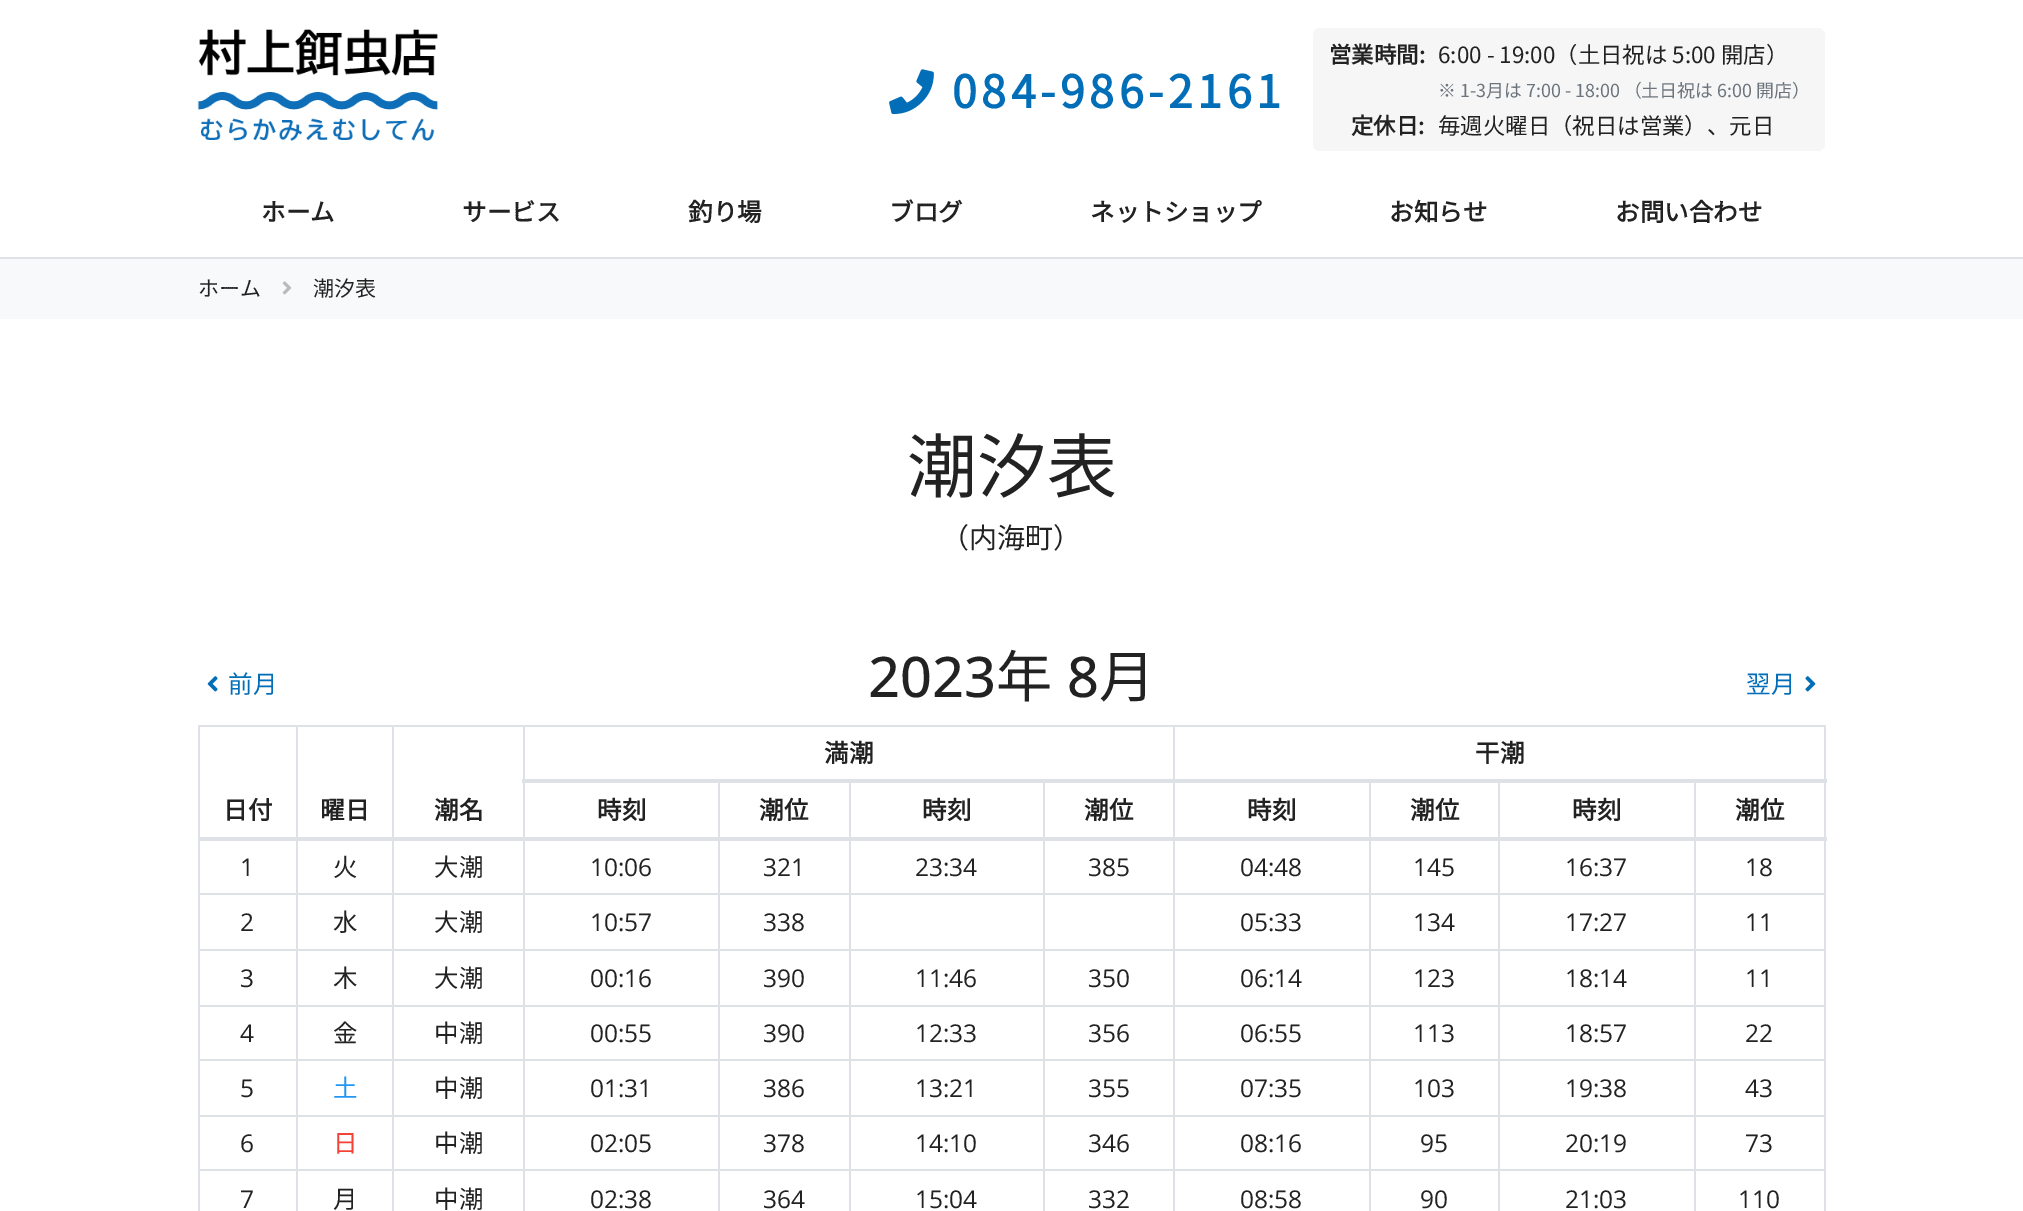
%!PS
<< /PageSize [2023 1211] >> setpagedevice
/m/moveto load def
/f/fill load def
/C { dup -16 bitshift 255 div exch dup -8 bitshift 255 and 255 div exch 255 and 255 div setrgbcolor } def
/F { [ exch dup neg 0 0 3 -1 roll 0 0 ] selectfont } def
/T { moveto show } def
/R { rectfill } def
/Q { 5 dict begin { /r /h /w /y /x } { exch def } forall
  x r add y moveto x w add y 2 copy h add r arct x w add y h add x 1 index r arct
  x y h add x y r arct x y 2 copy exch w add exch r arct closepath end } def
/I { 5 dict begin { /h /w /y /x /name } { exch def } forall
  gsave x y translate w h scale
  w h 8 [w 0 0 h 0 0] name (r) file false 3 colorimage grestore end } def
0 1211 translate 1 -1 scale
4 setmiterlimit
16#FFFFFF C
0 0 2023 1211 R
16#DEE2E6 C
0 257 2023 2 R
(1.rgb) 197 29 241 112 I
(2.rgb) 889 69 45 46 I
/NotoSansJP-Bold 44.75 F
16#036EB8 C
952 108 m 4.5 0 (084-986-2161) ashow
16#F6F6F6 C
1313 28 512 123 7 Q f
/NotoSansJP-Bold 22.4 F
16#222222 C
(営業時間:) 1329 63 T
/NotoSansJP-Thin 22.4 F
(6:00 - 19:00（土日祝は 5:00 開店）) 1438 63 T
/NotoSansJP-Thin 17.9 F
16#6C757D C
(※ 1-3月は 7:00 - 18:00 （土日祝は 6:00 開店）) 1438 97 T
/NotoSansJP-Bold 22.4 F
16#222222 C
(定休日:) 1351 134 T
/NotoSansJP-Thin 22.4 F
(毎週火曜日（祝日は営業）、元日) 1438 134 T
/NotoSansJP-Bold 24.5 F
(ホーム) 261 221 T
(サービス) 462 221 T
(釣り場) 688 221 T
(ブログ) 889 221 T
(ネットショップ) 1090 221 T
(お知らせ) 1389 221 T
(お問い合わせ) 1615 221 T
16#F8F9FA C
0 259 2023 60 R
/NotoSansJP-Thin 21 F
16#222222 C
(ホーム) 198 296 T
(3.rgb) 282 281 10 14 I
(潮汐表) 313 296 T
/NotoSansJP-Thin 70 F
(潮汐表) 907 492 T
/NotoSansJP-Thin 28 F
(（内海町）) 941 548 T
(4.rgb) 207 676 11 16 I
/NotoSansJP-Thin 24.5 F
16#036EB8 C
(前月) 228 693 T
/OpenSans-Medium 56 F
16#222222 C
(2023) 868 697 T
/NotoSansJP-Thin 56 F
(年) 996 697 T
/OpenSans-Medium 56 F
(8) 1067 697 T
/NotoSansJP-Thin 56 F
(月) 1099 697 T
/NotoSansJP-Thin 24.5 F
16#036EB8 C
(翌月) 1746 693 T
(5.rgb) 1805 676 11 16 I
16#DEE2E6 C
198 725 1627 2 R
1824 725 2 486 R
198 725 2 486 R
/NotoSansJP-Bold 24.5 F
16#222222 C
(満潮) 824 762 T
16#DEE2E6 C
1694 893 131 2 R
1694 949 131 2 R
1694 1005 131 2 R
1694 1059 131 2 R
1694 1115 131 2 R
1694 1169 131 2 R
1694 1169 2 42 R
1498 1169 198 2 R
1694 1115 2 56 R
1498 1115 198 2 R
1694 1059 2 58 R
1498 1059 198 2 R
1694 1005 2 56 R
1498 1005 198 2 R
1694 949 2 57 R
1498 949 198 2 R
1694 893 2 57 R
1498 893 198 2 R
1498 1169 2 42 R
1369 1169 131 2 R
1498 1115 2 56 R
1369 1115 131 2 R
1498 1059 2 58 R
1369 1059 131 2 R
1498 1005 2 56 R
1369 1005 131 2 R
1498 949 2 57 R
1369 949 131 2 R
1498 893 2 57 R
1369 893 131 2 R
1369 1169 2 42 R
1173 1169 197 2 R
1369 1115 2 56 R
1173 1115 197 2 R
1369 1059 2 58 R
1173 1059 197 2 R
1369 1005 2 56 R
1173 1005 197 2 R
1369 949 2 57 R
1173 949 197 2 R
1369 893 2 57 R
1173 893 197 2 R
1173 1169 2 42 R
1043 1169 131 2 R
1173 1115 2 56 R
1043 1115 131 2 R
1173 1059 2 58 R
1043 1059 131 2 R
1173 1005 2 56 R
1043 1005 131 2 R
1173 949 2 57 R
1043 949 131 2 R
1173 893 2 57 R
1043 893 131 2 R
1043 1169 2 42 R
849 1169 196 2 R
1043 1115 2 56 R
849 1115 196 2 R
1043 1059 2 58 R
849 1059 196 2 R
1043 1005 2 56 R
849 1005 196 2 R
1043 949 2 57 R
849 949 196 2 R
1043 893 2 57 R
849 893 196 2 R
849 1169 2 42 R
718 1169 133 2 R
849 1115 2 56 R
718 1115 133 2 R
849 1059 2 58 R
718 1059 133 2 R
849 1005 2 56 R
718 1005 133 2 R
849 949 2 57 R
718 949 133 2 R
849 893 2 57 R
718 893 133 2 R
718 1169 2 42 R
523 1169 196 2 R
718 1115 2 56 R
523 1115 196 2 R
718 1059 2 58 R
523 1059 196 2 R
718 1005 2 56 R
523 1005 196 2 R
718 949 2 57 R
523 949 196 2 R
718 893 2 57 R
523 893 196 2 R
523 1169 2 42 R
392 1169 133 2 R
523 1115 2 56 R
392 1115 133 2 R
523 1059 2 58 R
392 1059 133 2 R
523 1005 2 56 R
392 1005 133 2 R
523 949 2 57 R
392 949 133 2 R
523 893 2 57 R
392 893 133 2 R
523 725 2 169 R
718 781 2 113 R
849 781 2 113 R
1043 781 2 113 R
1173 725 2 169 R
1369 781 2 113 R
1498 781 2 113 R
1694 781 2 113 R
522 779 1305 4 R
16#222222 C
(干潮) 1475 762 T
(日付) 223 819 T
(曜日) 320 819 T
(潮名) 434 819 T
(時刻) 597 819 T
(潮位) 759 819 T
(時刻) 922 819 T
(潮位) 1084 819 T
(時刻) 1247 819 T
(潮位) 1410 819 T
(時刻) 1572 819 T
16#DEE2E6 C
392 1169 2 42 R
296 1169 98 2 R
392 1115 2 56 R
296 1115 98 2 R
392 1059 2 58 R
296 1059 98 2 R
392 1005 2 56 R
296 1005 98 2 R
392 949 2 57 R
296 949 98 2 R
392 893 2 57 R
296 893 98 2 R
296 1169 2 42 R
198 1169 100 2 R
296 1115 2 56 R
198 1115 100 2 R
296 1059 2 58 R
198 1059 100 2 R
296 1005 2 56 R
198 1005 100 2 R
296 949 2 57 R
198 949 100 2 R
296 893 2 57 R
198 893 100 2 R
296 725 2 169 R
392 725 2 169 R
198 837 1629 4 R
16#222222 C
(潮位) 1735 819 T
/OpenSans-Regular 24.5 F
(1) 240 876 T
/NotoSansJP-Thin 24.5 F
(火) 333 876 T
(大潮) 434 876 T
/OpenSans-Regular 24.5 F
(10:06) 590 876 T
(321) 763 876 T
(23:34) 915 876 T
(385) 1088 876 T
(04:48) 1240 876 T
(145) 1413 876 T
(16:37) 1565 876 T
(18) 1745 876 T
(2) 240 931 T
/NotoSansJP-Thin 24.5 F
(水) 333 931 T
(大潮) 434 931 T
/OpenSans-Regular 24.5 F
(10:57) 590 931 T
(338) 763 931 T
(05:33) 1240 931 T
(134) 1413 931 T
(17:27) 1565 931 T
(11) 1745 931 T
(3) 240 987 T
/NotoSansJP-Thin 24.5 F
(木) 333 987 T
(大潮) 434 987 T
/OpenSans-Regular 24.5 F
(00:16) 590 987 T
(390) 763 987 T
(11:46) 915 987 T
(350) 1088 987 T
(06:14) 1240 987 T
(123) 1413 987 T
(18:14) 1565 987 T
(11) 1745 987 T
(4) 240 1042 T
/NotoSansJP-Thin 24.5 F
(金) 333 1042 T
(中潮) 434 1042 T
/OpenSans-Regular 24.5 F
(00:55) 590 1042 T
(390) 763 1042 T
(12:33) 915 1042 T
(356) 1088 1042 T
(06:55) 1240 1042 T
(113) 1413 1042 T
(18:57) 1565 1042 T
(22) 1745 1042 T
(5) 240 1097 T
/NotoSansJP-Thin 24.5 F
16#2196F3 C
(土) 333 1097 T
16#222222 C
(中潮) 434 1097 T
/OpenSans-Regular 24.5 F
(01:31) 590 1097 T
(386) 763 1097 T
(13:21) 915 1097 T
(355) 1088 1097 T
(07:35) 1240 1097 T
(103) 1413 1097 T
(19:38) 1565 1097 T
(43) 1745 1097 T
(6) 240 1152 T
/NotoSansJP-Thin 24.5 F
16#F44336 C
(日) 333 1152 T
16#222222 C
(中潮) 434 1152 T
/OpenSans-Regular 24.5 F
(02:05) 590 1152 T
(378) 763 1152 T
(14:10) 915 1152 T
(346) 1088 1152 T
(08:16) 1240 1152 T
(95) 1420 1152 T
(20:19) 1565 1152 T
(73) 1745 1152 T
(7) 240 1208 T
/NotoSansJP-Thin 24.5 F
(月) 333 1208 T
(中潮) 434 1208 T
/OpenSans-Regular 24.5 F
(02:38) 590 1208 T
(364) 763 1208 T
(15:04) 915 1208 T
(332) 1088 1208 T
(08:58) 1240 1208 T
(90) 1420 1208 T
(21:03) 1565 1208 T
(110) 1738 1208 T
showpage
